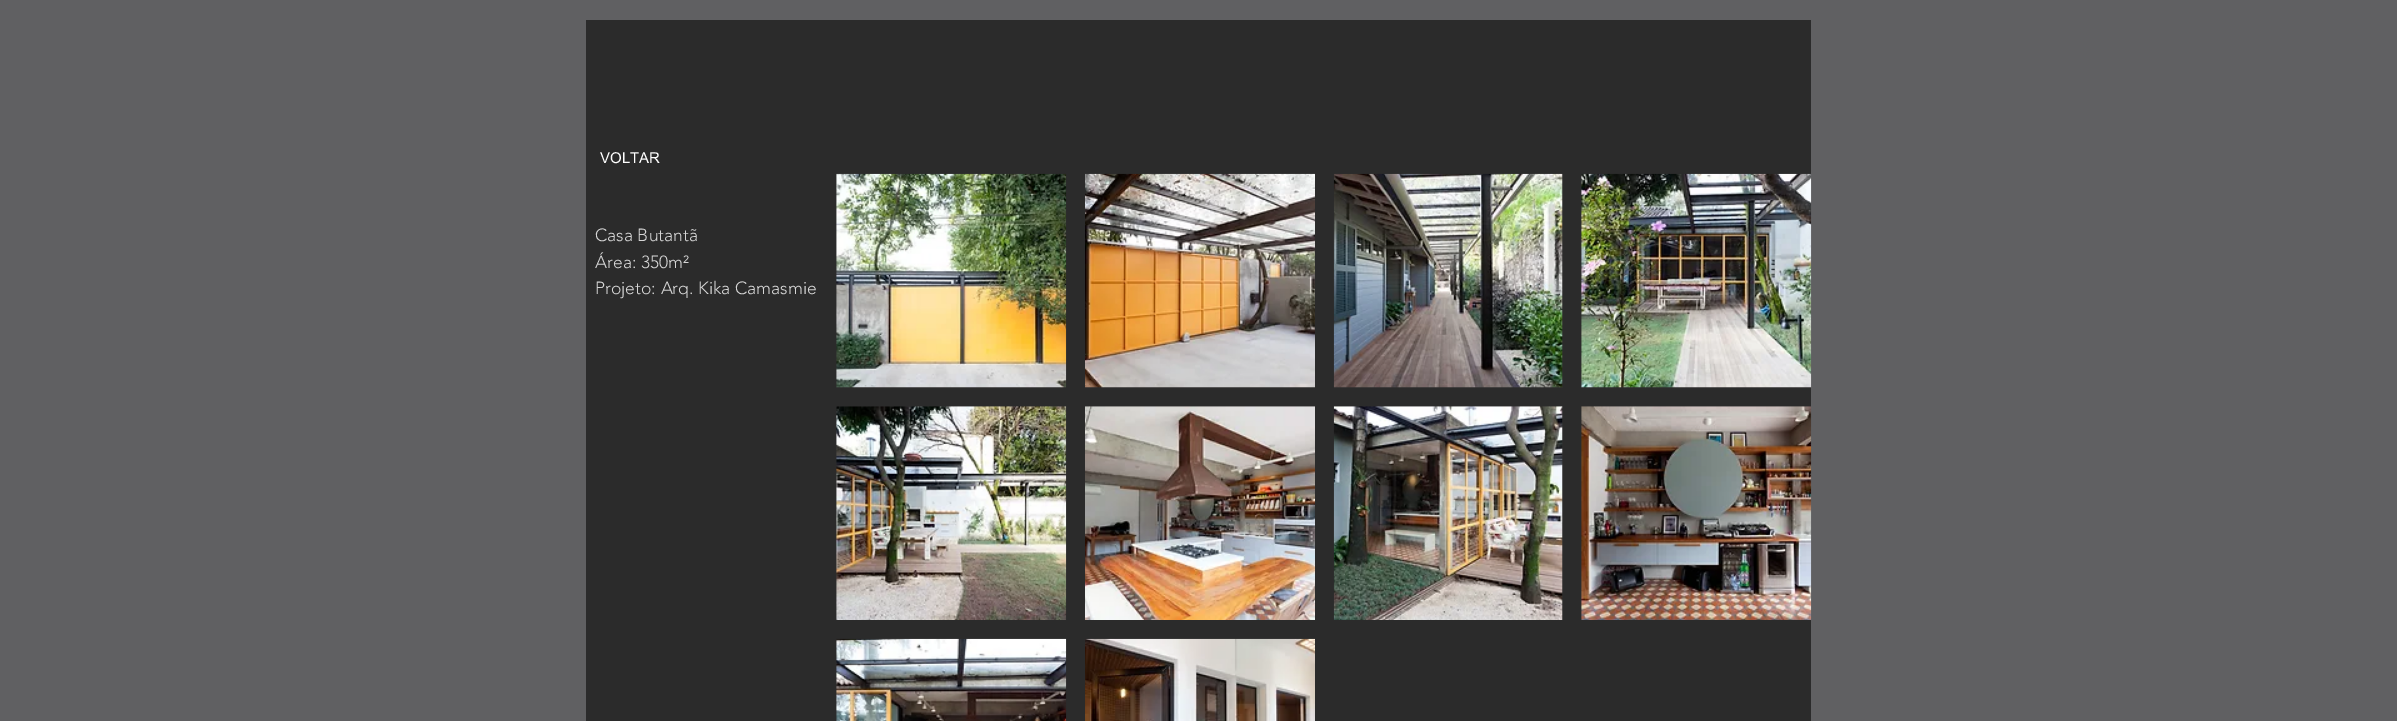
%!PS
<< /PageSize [2397 721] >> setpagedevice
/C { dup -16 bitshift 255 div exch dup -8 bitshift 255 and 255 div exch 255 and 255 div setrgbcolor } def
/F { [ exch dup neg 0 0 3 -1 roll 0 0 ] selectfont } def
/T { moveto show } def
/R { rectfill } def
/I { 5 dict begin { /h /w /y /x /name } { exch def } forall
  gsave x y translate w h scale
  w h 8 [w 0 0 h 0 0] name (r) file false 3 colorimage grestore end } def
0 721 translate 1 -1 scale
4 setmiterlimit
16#606062 C
0 0 2397 721 R
16#2B2B2B C
586 20 1225 701 R
/Arial-Regular 15 F
16#FFFFFF C
(VOLTAR) 600 163 T
/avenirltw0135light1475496-Light 17.5 F
16#D5D5D5 C
(Casa Butantã) 595 241 T
(Área: 350m²) 595 268 T
(Projeto: Arq. Kika Camasmie) 595 294 T
16#2F2E2E C
836 174 230 214 R
(1.rgb) 836 173 231 215 I
1085 387 230 1 R
(2.rgb) 1085 173 230 215 I
1334 174 229 214 R
(3.rgb) 1333 173 230 215 I
1581 174 230 214 R
(4.rgb) 1581 173 231 215 I
836 406 230 214 R
(5.rgb) 836 406 231 214 I
1085 406 230 1 R
(6.rgb) 1085 406 230 214 I
1334 406 229 214 R
(7.rgb) 1333 406 230 214 I
1581 406 230 214 R
(8.rgb) 1581 406 231 214 I
836 639 1 82 R
(9.rgb) 836 638 231 83 I
(10.rgb) 1085 638 230 83 I
showpage
